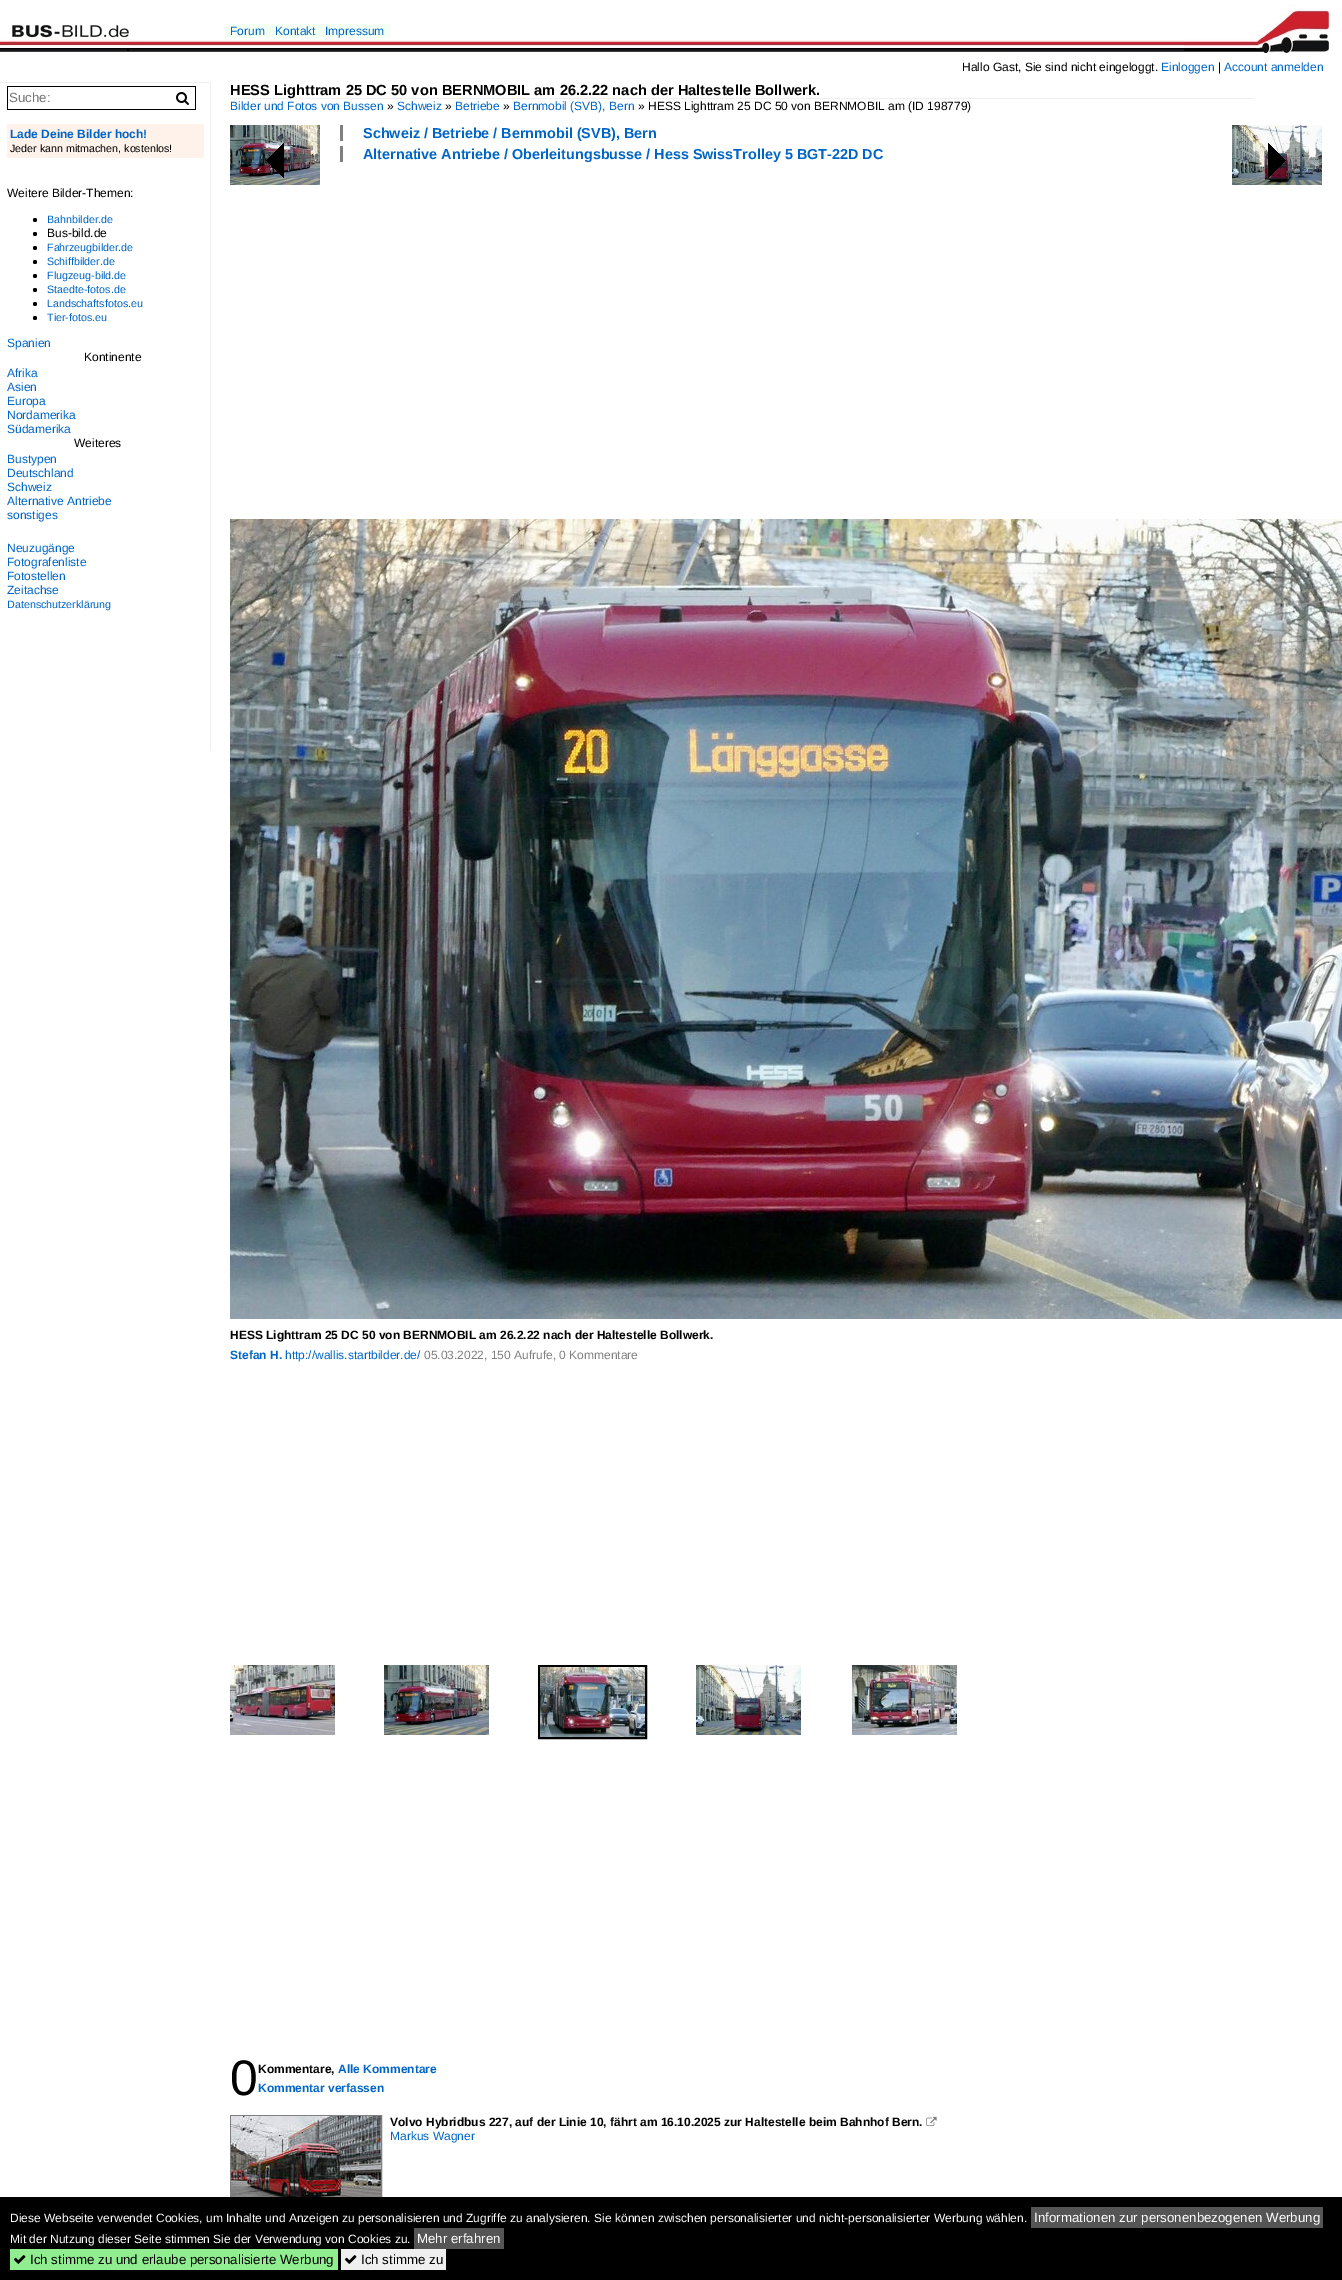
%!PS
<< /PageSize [1342 2280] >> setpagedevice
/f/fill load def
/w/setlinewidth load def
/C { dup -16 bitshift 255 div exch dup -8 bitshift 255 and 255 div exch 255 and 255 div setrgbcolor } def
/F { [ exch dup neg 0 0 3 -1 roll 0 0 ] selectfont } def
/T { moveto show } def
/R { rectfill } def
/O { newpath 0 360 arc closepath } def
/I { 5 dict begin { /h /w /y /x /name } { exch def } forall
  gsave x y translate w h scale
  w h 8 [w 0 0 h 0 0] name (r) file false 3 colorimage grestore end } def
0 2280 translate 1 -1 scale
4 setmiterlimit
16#FFFFFF C
0 0 1342 2280 R
(3.rgb) 0 40 1184 12 I
(1.rgb) 3 23 126 28 I
16#F4FFF4 C
225 24 165 14 R
/LiberationSans-Regular 12 F
16#0065C4 C
(Forum) 230 35 T
(Kontakt) 275 35 T
(Impressum) 325 35 T
(2.rgb) 1184 4 147 49 I
16#000000 C
(Hallo Gast, Sie sind nicht eingeloggt.) 962 71 T
16#0065C4 C
(Einloggen) 1161 71 T
16#000000 C
(|) 1218 71 T
16#0065C4 C
(Account anmelden) 1224 71 T
16#EFEFEF C
0 82 211 1 R
210 82 1 669 R
16#000000 C
7 86 189 1 R
7 109 163 1 R
7 86 1 24 R
/LiberationSans-Regular 13.3 F
16#757575 C
(Suche:) 9 102 T
16#000000 C
195 86 1 24 R
170 109 26 1 R
(4.rgb) 176 92 13 13 I
16#FFF2EB C
7 124 197 34 R
/LiberationSans-Bold 12 F
16#0065C4 C
(Lade Deine Bilder hoch!) 10 138 T
/LiberationSans-Regular 10.7 F
16#000000 C
(Jeder kann mitmachen, kostenlos!) 10 152 T
/LiberationSans-Regular 12 F
(Weitere Bilder-Themen:) 7 197 T
35 220 2 O f
/LiberationSans-Regular 10.7 F
16#0065C4 C
(Bahnbilder.de) 47 223 T
16#000000 C
35 234 2 O f
/LiberationSans-Regular 12 F
(Bus-bild.de) 47 237 T
35 248 2 O f
/LiberationSans-Regular 10.7 F
16#0065C4 C
(Fahrzeugbilder.de) 47 251 T
16#000000 C
35 262 2 O f
16#0065C4 C
(Schiffbilder.de) 47 265 T
16#000000 C
35 276 2 O f
16#0065C4 C
(Flugzeug-bild.de) 47 279 T
16#000000 C
35 290 2 O f
16#0065C4 C
(Staedte-fotos.de) 47 293 T
16#000000 C
35 304 2 O f
16#0065C4 C
(Landschaftsfotos.eu) 47 307 T
16#000000 C
35 318 2 O f
16#0065C4 C
(Tier-fotos.eu) 47 321 T
/LiberationSans-Regular 12 F
(Spanien) 7 347 T
16#000000 C
(Kontinente) 84 361 T
16#0065C4 C
(Afrika) 7 377 T
(Asien) 7 391 T
(Europa) 7 405 T
(Nordamerika) 7 419 T
(Südamerika) 7 433 T
16#000000 C
(Weiteres) 74 447 T
16#0065C4 C
(Bustypen) 7 463 T
(Deutschland) 7 477 T
(Schweiz) 7 491 T
(Alternative Antriebe) 7 505 T
(sonstiges) 7 519 T
(Neuzugänge) 7 552 T
(Fotografenliste) 7 566 T
(Fotostellen) 7 580 T
(Zeitachse) 7 594 T
/LiberationSans-Regular 10.7 F
(Datenschutzerklärung) 7 608 T
16#EFEFEF C
230 98 1024 1 R
/LiberationSans-Bold 14.65 F
16#000000 C
(HESS Lighttram 25 DC 50 von BERNMOBIL am 26.2.22 nach der Haltestelle Bollwerk.) 230 95 T
/LiberationSans-Regular 12 F
16#0065C4 C
(Bilder und Fotos von Bussen) 230 110 T
16#000000 C
(») 387 110 T
16#0065C4 C
(Schweiz) 397 110 T
16#000000 C
(») 445 110 T
16#0065C4 C
(Betriebe) 455 110 T
16#000000 C
(») 503 110 T
16#0065C4 C
(Bernmobil \(SVB\), Bern) 513 110 T
16#000000 C
(» HESS Lighttram 25 DC 50 von BERNMOBIL am \(ID 198779\)) 638 110 T
(5.rgb) 230 125 90 60 I
(6.rgb) 266 143 18 35 I
16#808080 C
340 125 3 16 R
/LiberationSans-Bold 14.4 F
16#0065C4 C
(Schweiz / Betriebe / Bernmobil \(SVB\), Bern) 363 138 T
16#808080 C
340 146 3 16 R
16#0065C4 C
(Alternative Antriebe / Oberleitungsbusse / Hess SwissTrolley 5 BGT-22D DC) 363 159 T
(7.rgb) 1232 125 90 60 I
(8.rgb) 1268 143 18 35 I
(9.rgb) 230 519 1112 800 I
/LiberationSans-Bold 12 F
16#000000 C
(HESS Lighttram 25 DC 50 von BERNMOBIL am 26.2.22 nach der Haltestelle Bollwerk.) 230 1339 T
16#0065C4 C
(Stefan H.) 230 1359 T
/LiberationSans-Regular 12 F
(http://wallis.startbilder.de/) 285 1359 T
16#808080 C
(05.03.2022, 150 Aufrufe, 0 Kommentare) 424 1359 T
(10.rgb) 230 1665 105 70 I
(11.rgb) 384 1665 105 70 I
16#000000 C
2 w
539 1666 107 72 rectstroke
(12.rgb) 540 1667 105 70 I
(13.rgb) 696 1665 105 70 I
(14.rgb) 852 1665 105 70 I
/LiberationSans-Regular 50 F
(0) 230 2095 T
/LiberationSans-Bold 12 F
(Kommentare,) 258 2073 T
16#0065C4 C
(Alle Kommentare) 338 2073 T
(Kommentar verfassen) 258 2092 T
16#808080 C
1 w
230.5 2115.5 151 101 rectstroke
(15.rgb) 231 2116 150 81 I
16#000000 C
(Volvo Hybridbus 227, auf der Linie 10, fährt am 16.10.2025 zur Haltestelle beim Bahnhof Bern.) 390 2126 T
(16.rgb) 926 2116 11 10 I
/LiberationSans-Regular 12 F
16#0065C4 C
(Markus Wagner) 390 2140 T
16#000000 C
0 2197 1342 83 R
16#FFFFFF C
(Diese Webseite verwendet Cookies, um Inhalte und Anzeigen zu personalisieren und Zugriffe zu analysieren. Sie können zwischen personalisierter und nicht-personalisierter Werbung wählen.) 10 2222 T
16#555555 C
1031 2207 292 21 R
/LiberationSans-Regular 13.3 F
16#FFFFFF C
(Informationen zur personenbezogenen Werbung) 1034 2222 T
/LiberationSans-Regular 12 F
(Mit der Nutzung dieser Seite stimmen Sie der Verwendung von Cookies zu.) 10 2243 T
16#555555 C
414 2228 90 21 R
/LiberationSans-Regular 13.3 F
16#FFFFFF C
(Mehr erfahren) 417 2243 T
16#90EE90 C
10 2249 328 21 R
(17.rgb) 13 2255 13 9 I
16#000000 C
(Ich stimme zu und erlaube personalisierte Werbung) 30 2264 T
16#EFEFEF C
341 2249 105 21 R
(18.rgb) 344 2255 13 9 I
16#000000 C
(Ich stimme zu) 361 2264 T
showpage
